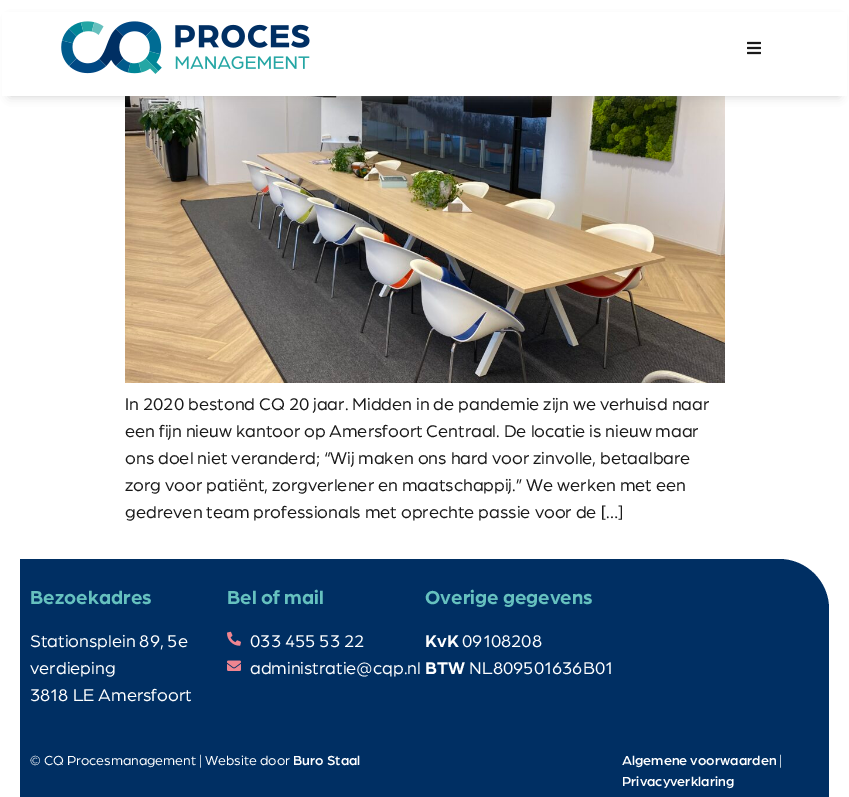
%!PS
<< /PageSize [849 797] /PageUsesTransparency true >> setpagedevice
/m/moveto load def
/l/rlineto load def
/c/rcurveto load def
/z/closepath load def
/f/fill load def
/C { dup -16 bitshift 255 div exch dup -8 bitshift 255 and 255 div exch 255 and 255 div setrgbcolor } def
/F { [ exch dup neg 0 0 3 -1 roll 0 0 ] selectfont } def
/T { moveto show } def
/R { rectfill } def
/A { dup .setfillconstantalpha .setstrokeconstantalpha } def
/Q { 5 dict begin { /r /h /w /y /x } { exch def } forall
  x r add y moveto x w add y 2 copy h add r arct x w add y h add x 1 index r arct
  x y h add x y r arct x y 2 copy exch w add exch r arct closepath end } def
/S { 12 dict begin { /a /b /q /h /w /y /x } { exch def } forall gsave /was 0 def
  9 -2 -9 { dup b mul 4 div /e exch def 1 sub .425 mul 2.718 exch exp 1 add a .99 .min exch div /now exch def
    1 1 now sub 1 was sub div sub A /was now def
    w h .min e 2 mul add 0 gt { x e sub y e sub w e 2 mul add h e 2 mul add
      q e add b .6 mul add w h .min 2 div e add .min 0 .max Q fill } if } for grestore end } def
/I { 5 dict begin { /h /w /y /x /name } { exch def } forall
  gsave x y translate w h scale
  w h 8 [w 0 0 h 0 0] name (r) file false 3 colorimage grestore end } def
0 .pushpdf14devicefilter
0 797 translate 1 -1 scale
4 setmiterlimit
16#FFFFFF C
0 0 849 797 R
(3.rgb) 125 96 600 287 I
16#9F9F9F C
10 20 829 76 0 5 .5 S
16#FFFFFF C
2 12 845 84 R
(1.rgb) 61 21 249 53 I
(2.rgb) 747 41 14 14 I
/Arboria-Regular 18 F
16#1A1A1A C
(In 2020 bestond CQ 20 jaar. Midden in de pandemie zijn we verhuisd naar) 125 410 T
(een fijn nieuw kantoor op Amersfoort Centraal. De locatie is nieuw maar) 125 437 T
(ons doel niet veranderd; “Wij maken ons hard voor zinvolle, betaalbare) 125 464 T
(zorg voor patiënt, zorgverlener en maatschappij.” We werken met een) 125 491 T
(gedreven team professionals met oprechte passie voor de […]) 125 518 T
16#002F63 C
20 559 m 759 0 l 27.5 0 50 22.5 50 50 c 0 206 l -809 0 l z f
/Arboria-Bold 20 F
16#66C1BF C
(Bezoekadres) 30 604 T
/Arboria-Regular 18 F
16#FFFFFF C
(Stationsplein 89, 5e) 30 647 T
(verdieping) 30 674 T
(3818 LE Amersfoort) 30 701 T
/Arboria-Bold 20 F
16#66C1BF C
(Bel of mail) 227 604 T
(4.rgb) 227 631 14 15 I
/Arboria-Regular 18 F
16#FFFFFF C
(033 455 53 22) 250 647 T
(5.rgb) 227 660 14 11 I
(administratie@cqp.nl) 250 674 T
/Arboria-Bold 20 F
16#66C1BF C
(Overige gegevens) 425 604 T
/Arboria-Bold 18 F
16#FFFFFF C
(KvK) 425 647 T
/Arboria-Regular 18 F
(09108208) 462 647 T
/Arboria-Bold 18 F
(BTW) 425 674 T
/Arboria-Regular 18 F
(NL809501636B01) 469 674 T
/Arboria-Regular 14 F
(© CQ Procesmanagement | Website door) 30 765 T
/Arboria-Medium 14 F
(Buro Staal) 293 765 T
(Algemene voorwaarden) 622 765 T
/Arboria-Regular 14 F
(|) 779 765 T
/Arboria-Medium 14 F
(Privacyverklaring) 622 786 T
.poppdf14devicefilter showpage
